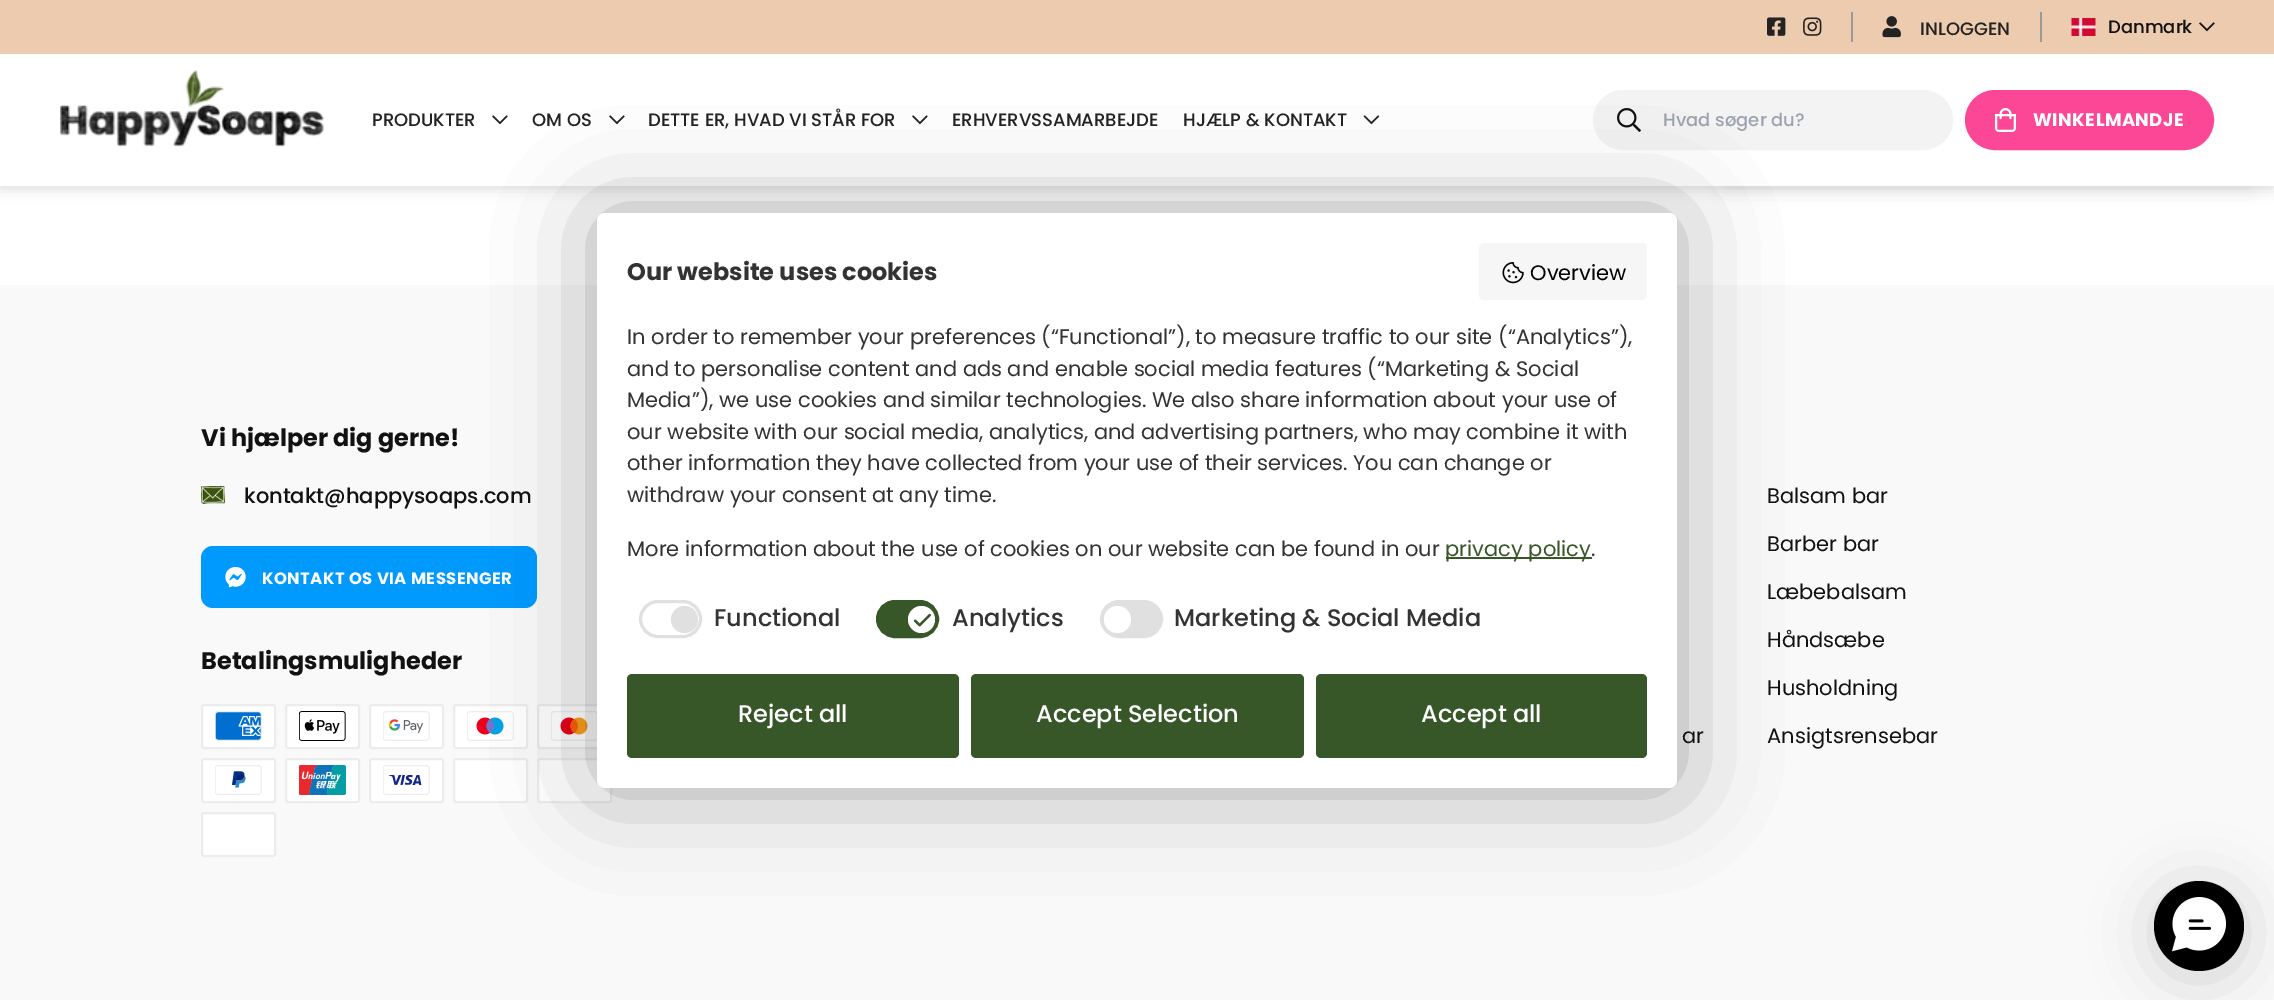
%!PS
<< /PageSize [2274 1000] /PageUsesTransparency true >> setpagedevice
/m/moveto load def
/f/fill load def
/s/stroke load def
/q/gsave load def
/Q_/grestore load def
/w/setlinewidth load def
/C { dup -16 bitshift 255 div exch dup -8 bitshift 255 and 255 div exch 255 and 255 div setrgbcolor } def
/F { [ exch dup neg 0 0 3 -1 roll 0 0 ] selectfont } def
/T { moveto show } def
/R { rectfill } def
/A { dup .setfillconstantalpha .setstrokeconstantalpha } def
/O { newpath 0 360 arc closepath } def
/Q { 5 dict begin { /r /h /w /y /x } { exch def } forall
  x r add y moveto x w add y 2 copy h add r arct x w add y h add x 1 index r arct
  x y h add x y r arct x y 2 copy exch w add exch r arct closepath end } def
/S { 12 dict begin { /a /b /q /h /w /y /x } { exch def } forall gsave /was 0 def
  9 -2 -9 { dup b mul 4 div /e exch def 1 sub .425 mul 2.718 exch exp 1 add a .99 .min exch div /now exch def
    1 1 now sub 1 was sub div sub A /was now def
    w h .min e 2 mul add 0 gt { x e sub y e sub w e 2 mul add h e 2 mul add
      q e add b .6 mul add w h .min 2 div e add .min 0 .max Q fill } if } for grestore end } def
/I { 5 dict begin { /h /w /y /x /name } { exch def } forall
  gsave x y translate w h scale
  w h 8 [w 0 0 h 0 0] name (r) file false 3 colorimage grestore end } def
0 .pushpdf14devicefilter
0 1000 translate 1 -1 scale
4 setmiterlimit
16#FFFFFF C
0 0 2274 1000 R
16#000000 C
1725 -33 525 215 0 11 .15 S
0 56 2274 132 0 7 .15 S
16#EDCBAF C
0 0 2274 54 R
16#999999 C
1851 12 2 30 R
(1.rgb) 1767 17 19 19 I
(2.rgb) 1803 17 19 19 I
2040 12 2 30 R
(3.rgb) 1882 16 19 22 I
/Poppins-Medium 18 F
16#232323 C
(INLOGGEN) 1920 35 T
(4.rgb) 2071 18 25 18 I
16#121212 C
(Danmark) 2108 33 T
(5.rgb) 2199 22 16 10 I
16#FFFFFF C
0 54 2274 132 R
(6.rgb) 60 70 264 77 I
16#232323 C
(PRODUKTER) 372 126 T
(7.rgb) 492 115 16 10 I
(OM OS) 532 126 T
(7.rgb) 609 115 16 10 I
(DETTE ER, HVAD VI STÅR FOR) 648 126 T
(7.rgb) 912 115 16 10 I
(ERHVERVSSAMARBEJDE) 952 126 T
(HJÆLP & KONTAKT) 1183 126 T
(8.rgb) 1363 115 17 10 I
16#F3F3F3 C
1594.5 91.5 357 57 28.5 Q q f Q_
3 w
s
(9.rgb) 1617 108 24 24 I
16#9CA3AF C
(Hvad søger du?) 1663 126 T
16#FC4797 C
1966.5 91.5 246 57 28.5 Q q f Q_
s
(10.rgb) 1995 108 21 24 I
/Poppins-Bold 18 F
16#FFFFFF C
2033 126 m .5 0 (WINKELMANDJE) ashow
16#F9F9F9 C
0 285 2274 715 R
16#009AFF C
201 546 336 62 12 Q f
16#FFFFFF C
454 705 73 43 2 Q q f Q_
16#ECECEC C
2 w
s
(18.rgb) 467 711 47 30 I
16#FFFFFF C
538 705 73 43 2 Q q f Q_
16#ECECEC C
s
(19.rgb) 551 711 46 30 I
16#FFFFFF C
454 759 73 43 2 Q q f Q_
16#ECECEC C
s
16#FFFFFF C
538 759 73 43 2 Q q f Q_
16#ECECEC C
s
16#000000 C
597 213 1080 575 8 48 .33 S
16#FFFFFF C
597 213 1080 575 8 Q f
/Poppins-Bold 24 F
16#333333 C
(Our website uses cookies) 627 280 T
16#F6F6F6 C
1479 243 168 57 5 Q f
(11.rgb) 1502 262 22 22 I
/Poppins-Regular 21 F
16#000000 C
(Overview) 1530 280 T
16#333333 C
(In order to remember your preferences \(“Functional”\), to measure traffic to our site \(“Analytics”\),) 627 344 T
(and to personalise content and ads and enable social media features \(“Marketing & Social) 627 376 T
(Media”\), we use cookies and similar technologies. We also share information about your use of) 627 407 T
(our website with our social media, analytics, and advertising partners, who may combine it with) 627 439 T
(other information they have collected from your use of their services. You can change or) 627 470 T
(withdraw your consent at any time.) 627 502 T
(More information about the use of cookies on our website can be found in our) 627 556 T
16#375728 C
1446 557 146 2 R
(privacy policy) 1445 556 T
16#333333 C
(.) 1591 556 T
16#E0E0E0 C
3 w
640.5 601.5 60 35 17.5 Q s
684.5 619.5 13.5 O f
/Poppins-Medium 24 F
16#333333 C
(Functional) 714 626 T
16#375728 C
877.5 601.5 60 35 17.5 Q q f Q_
s
16#FFFFFF C
921.5 619.5 13.5 O f
(12.rgb) 913 613 18 14 I
16#333333 C
(Analytics) 952 626 T
16#E0E0E0 C
1101.5 601.5 60 35 17.5 Q q f Q_
s
16#FFFFFF C
1117.5 619.5 13.5 O f
16#333333 C
(Marketing & Social Media) 1174 626 T
16#375728 C
627 674 332 84 5 Q f
16#FFFFFF C
(Reject all) 738 722 T
16#375728 C
971 674 333 84 5 Q f
16#FFFFFF C
(Accept Selection) 1036 722 T
16#375728 C
1316 674 331 84 5 Q f
16#FFFFFF C
(Accept all) 1421 722 T
/Poppins-Bold 24 F
16#121212 C
(Vi hjælper dig gerne!) 201 446 T
(13.rgb) 201 486 24 18 I
/Poppins-Medium 21 F
(kontakt@happysoaps.com) 244 503 T
(14.rgb) 225 566 21 22 I
/Poppins-Bold 16.5 F
16#FFFFFF C
262 584 m .4 0 (KONTAKT OS VIA MESSENGER) ashow
/Poppins-Bold 24 F
16#121212 C
(Betalingsmuligheder) 201 669 T
16#FFFFFF C
202 705 73 43 2 Q q f Q_
16#ECECEC C
2 w
s
(15.rgb) 215 711 47 30 I
16#FFFFFF C
286 705 73 43 2 Q q f Q_
16#ECECEC C
s
(16.rgb) 299 711 47 30 I
16#FFFFFF C
370 705 73 43 2 Q q f Q_
16#ECECEC C
s
(17.rgb) 383 711 47 30 I
16#FFFFFF C
202 759 73 43 2 Q q f Q_
16#ECECEC C
s
(20.rgb) 215 765 47 30 I
16#FFFFFF C
286 759 73 43 2 Q q f Q_
16#ECECEC C
s
(21.rgb) 299 765 47 30 I
16#FFFFFF C
370 759 73 43 2 Q q f Q_
16#ECECEC C
s
(22.rgb) 383 765 47 30 I
16#FFFFFF C
202 813 73 43 2 Q q f Q_
16#ECECEC C
s
/Poppins-Regular 21 F
16#121212 C
(Balsam bar) 1767 503 T
(Barber bar) 1767 551 T
(Læbebalsam) 1767 599 T
(Håndsæbe) 1767 647 T
(Husholdning) 1767 695 T
(ar) 1682 743 T
(Ansigtsrensebar) 1767 743 T
16#000000 C
2154 888 90 90 45 30 .16 S
2199 926 45 O f
(23.rgb) 2172 897 54 55 I
.poppdf14devicefilter showpage
